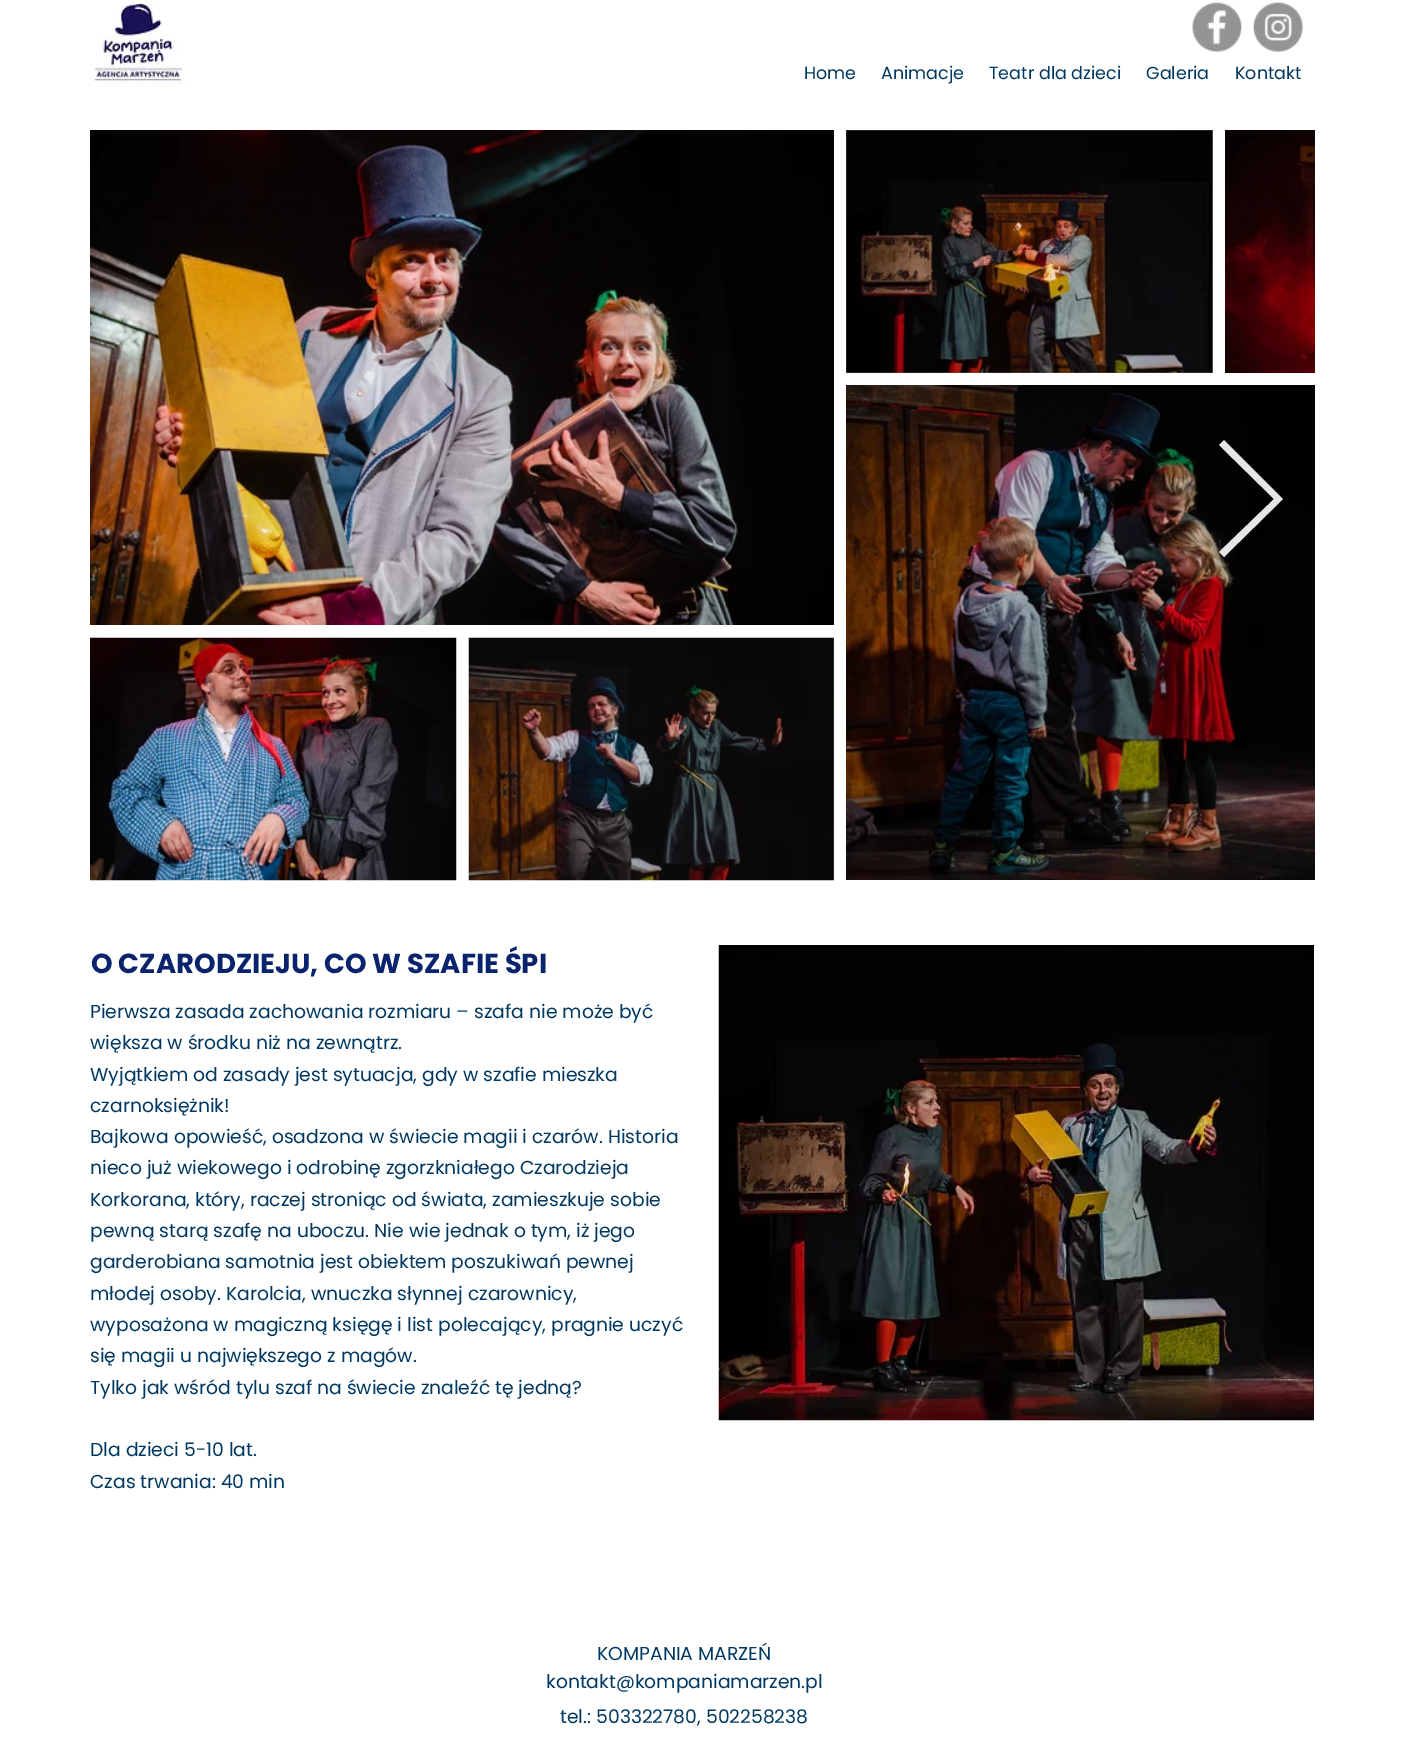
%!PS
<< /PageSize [1405 1742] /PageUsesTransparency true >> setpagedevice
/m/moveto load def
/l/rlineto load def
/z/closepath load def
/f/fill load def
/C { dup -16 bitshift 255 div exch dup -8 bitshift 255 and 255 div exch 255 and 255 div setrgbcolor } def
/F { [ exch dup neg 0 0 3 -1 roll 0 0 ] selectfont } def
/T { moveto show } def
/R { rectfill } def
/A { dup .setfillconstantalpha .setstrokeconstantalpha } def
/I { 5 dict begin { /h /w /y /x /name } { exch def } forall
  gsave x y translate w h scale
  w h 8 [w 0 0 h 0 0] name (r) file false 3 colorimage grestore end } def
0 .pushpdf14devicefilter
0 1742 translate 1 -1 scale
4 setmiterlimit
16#FFFFFF C
0 0 1405 1742 R
(1.rgb) 94 0 91 89 I
(2.rgb) 1192 2 50 50 I
(3.rgb) 1253 2 50 50 I
/Poppins-Regular 17.5 F
16#003862 C
(Home) 804 79 T
(Animacje) 881 79 T
(Teatr dla dzieci) 989 79 T
(Galeria) 1146 79 T
(Kontakt) 1235 79 T
(4.rgb) 90 130 744 495 I
(5.rgb) 90 637 367 244 I
(6.rgb) 468 637 366 244 I
16#8C8C8C C
846 130 367 243 R
(7.rgb) 846 130 367 243 I
(8.rgb) 1225 130 90 243 I
(9.rgb) 846 385 469 495 I
0.9 A
16#FFFFFF C
1219 445 m 5 -5 l 59 59 l -59 58 l -5 -5 l 55 -53 l z f
/Poppins-Bold 27.5 F
1 A
16#09246C C
(O CZARODZIEJU, CO W SZAFIE ŚPI) 91 973 T
16#000000 C
719 945 595 475 R
(10.rgb) 718 945 596 476 I
/Poppins-Regular 18.75 F
16#003862 C
(Pierwsza zasada zachowania rozmiaru – szafa nie może być) 90 1018 T
(większa w środku niż na zewnątrz.) 90 1049 T
(Wyjątkiem od zasady jest sytuacja, gdy w szafie mieszka) 90 1081 T
(czarnoksiężnik!) 90 1112 T
(Bajkowa opowieść, osadzona w świecie magii i czarów. Historia) 90 1143 T
(nieco już wiekowego i odrobinę zgorzkniałego Czarodzieja) 90 1174 T
(Korkorana, który, raczej stroniąc od świata, zamieszkuje sobie) 90 1206 T
(pewną starą szafę na uboczu. Nie wie jednak o tym, iż jego) 90 1237 T
(garderobiana samotnia jest obiektem poszukiwań pewnej) 90 1268 T
(młodej osoby. Karolcia, wnuczka słynnej czarownicy,) 90 1300 T
(wyposażona w magiczną księgę i list polecający, pragnie uczyć) 90 1331 T
(się magii u największego z magów.) 90 1362 T
(Tylko jak wśród tylu szaf na świecie znaleźć tę jedną?) 90 1394 T
(Dla dzieci 5-10 lat.) 90 1456 T
(Czas trwania: 40 min) 90 1488 T
(KOMPANIA MARZEŃ) 597 1660 T
(kontakt@kompaniamarzen.pl) 546 1688 T
(tel.: 503322780, 502258238) 560 1723 T
.poppdf14devicefilter showpage
